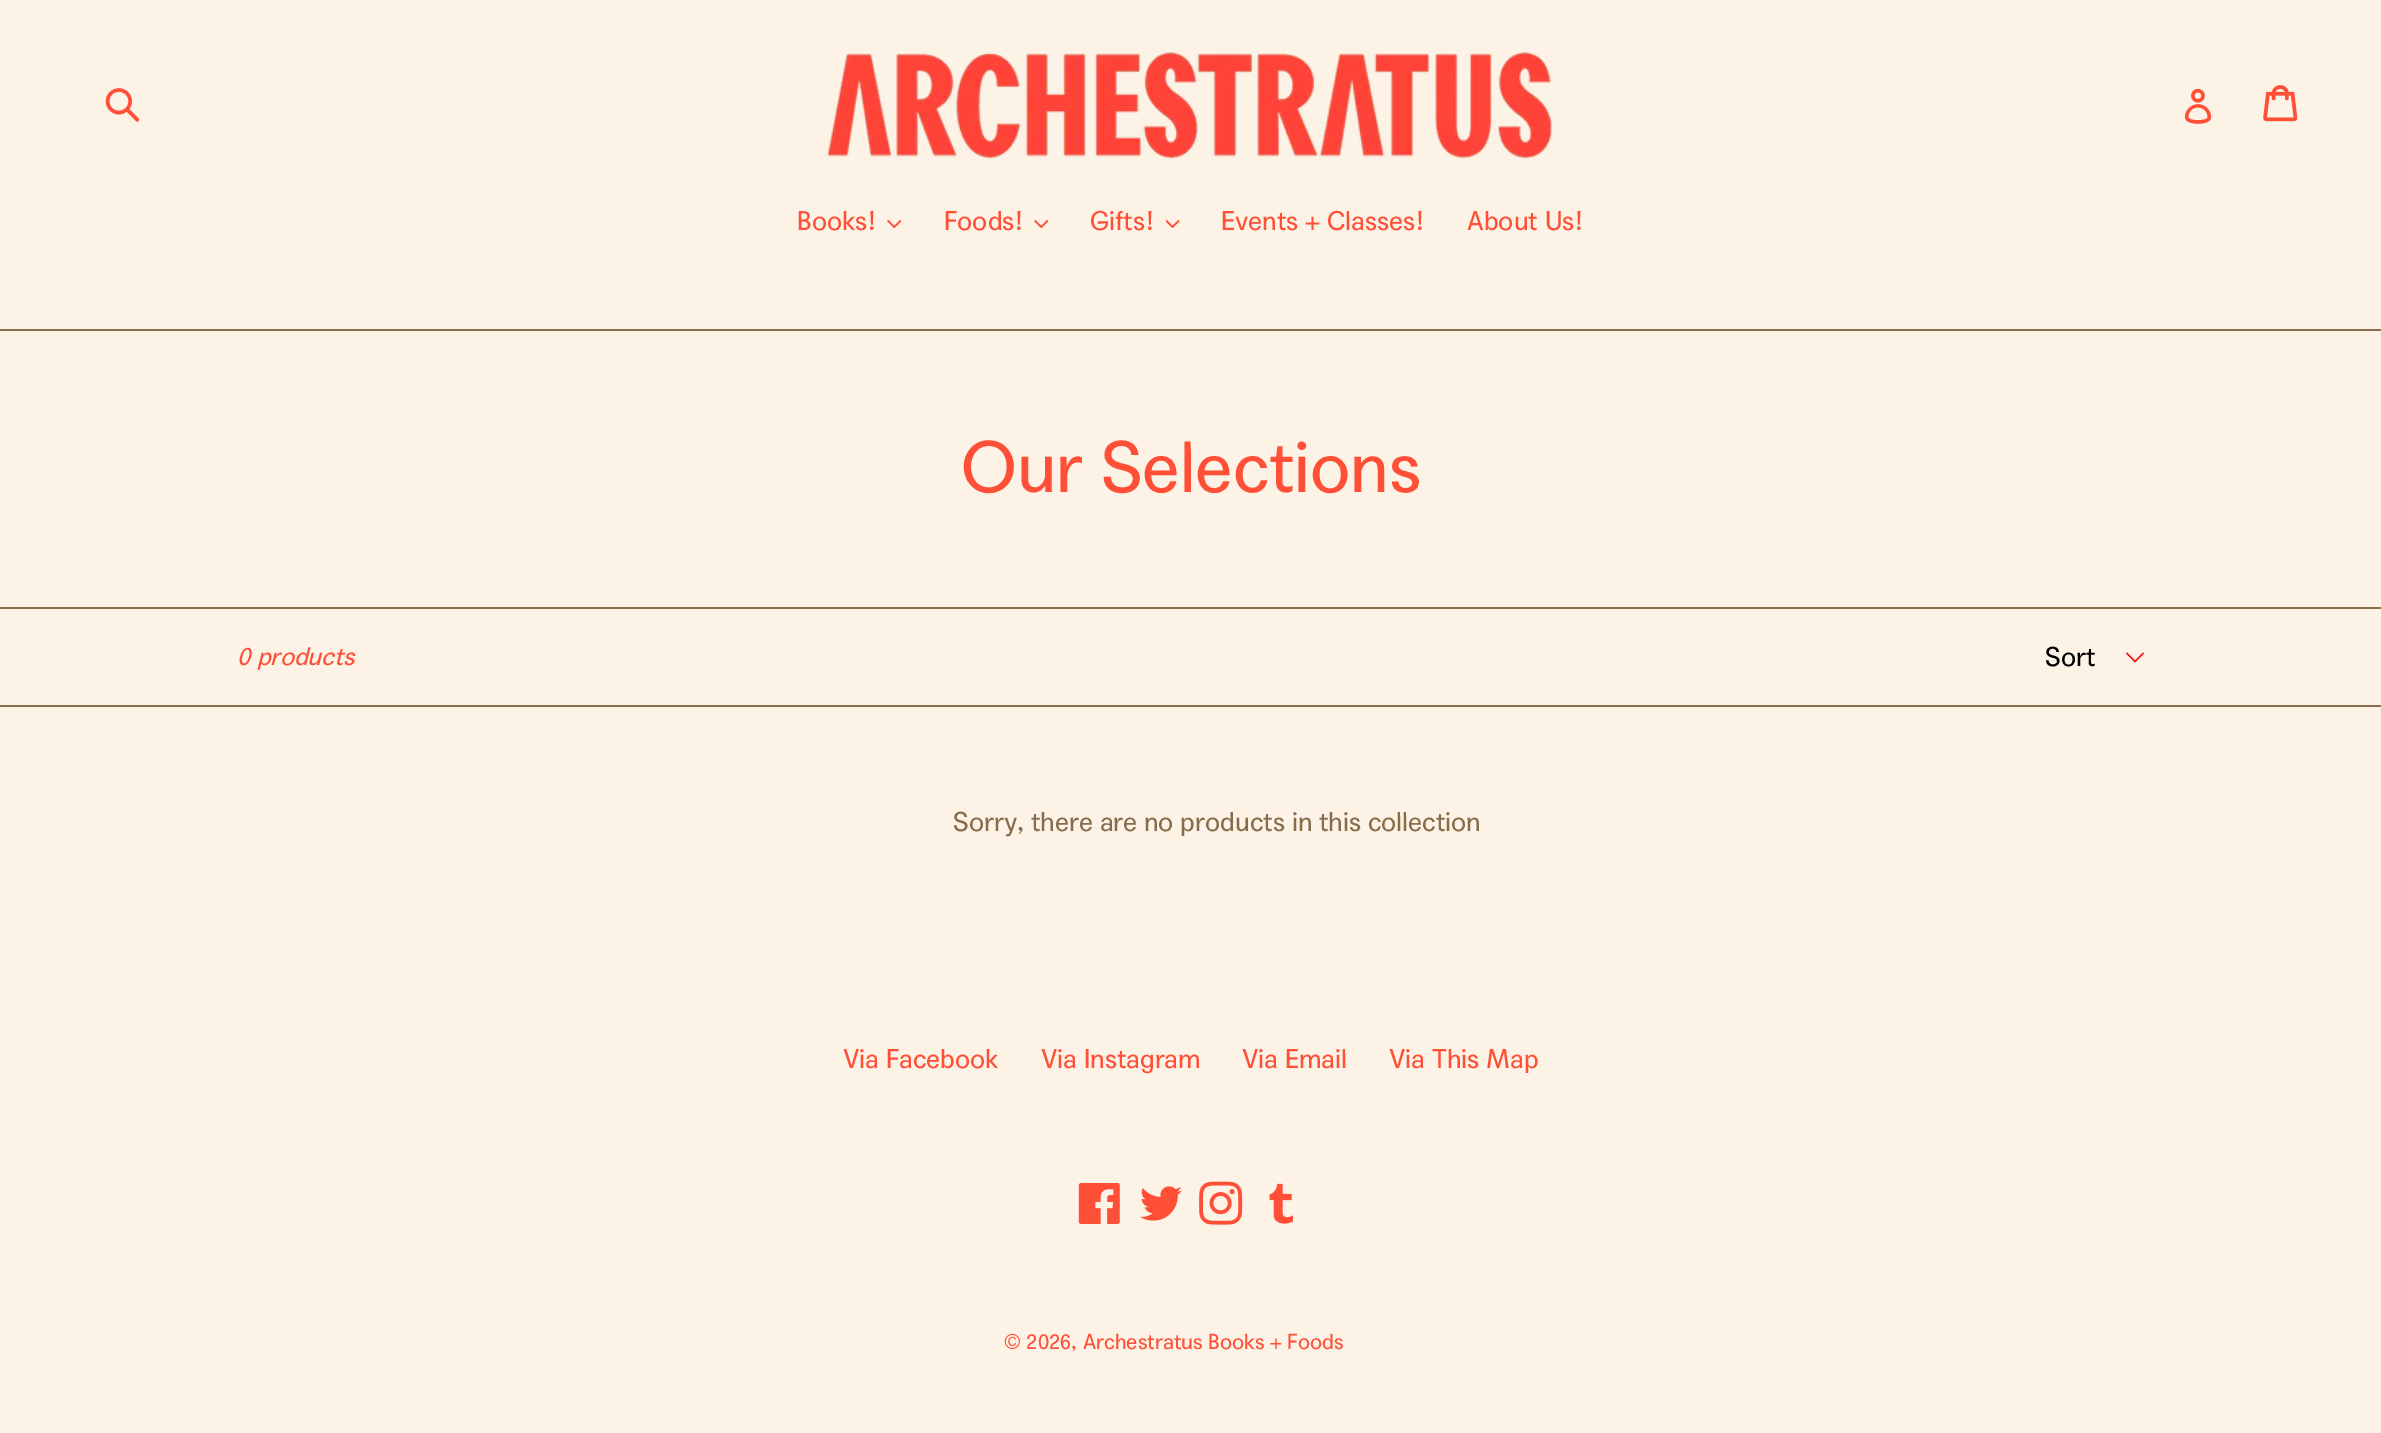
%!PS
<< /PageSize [2381 1433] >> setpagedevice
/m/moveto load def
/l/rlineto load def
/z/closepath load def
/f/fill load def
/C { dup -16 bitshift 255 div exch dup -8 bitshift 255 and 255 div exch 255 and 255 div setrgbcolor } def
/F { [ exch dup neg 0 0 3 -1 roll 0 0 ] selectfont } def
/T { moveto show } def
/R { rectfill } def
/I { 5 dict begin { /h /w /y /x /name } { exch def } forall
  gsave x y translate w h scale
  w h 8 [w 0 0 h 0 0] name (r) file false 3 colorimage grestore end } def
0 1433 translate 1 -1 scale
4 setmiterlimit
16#FCF3E6 C
0 0 2381 1433 R
(1.rgb) 105 88 35 34 I
(2.rgb) 827 52 725 107 I
(3.rgb) 2184 89 28 35 I
(4.rgb) 2263 85 35 37 I
16#886D4B C
0 329 2381 2 R
/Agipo-Regular 26.25 F
16#FF4F37 C
(Books!) 797 230 T
(5.rgb) 887 220 14 8 I
(Foods!) 944 230 T
(5.rgb) 1034 220 14 8 I
(Gifts!) 1090 230 T
(6.rgb) 1166 220 14 8 I
(Events + Classes!) 1221 230 T
(About Us!) 1467 230 T
/Agipo-Regular 70 F
(Our Selections) 961 492 T
16#886D4B C
0 607 2381 2 R
0 705 2381 2 R
/Agipo-Italic 24.5 F
16#FF4F37 C
(0 products) 237 665 T
16#FF0000 C
2135 662.5 m -9 -9 l 1 -1 l 8 8 l 8 -8 l 1 1 l z f
/Agipo-Regular 26.25 F
16#000000 C
(Sort) 2045 666 T
16#886D4B C
(Sorry, there are no products in this collection) 953 831 T
16#FF4F37 C
(Via Facebook) 843 1068 T
(Via Instagram) 1041 1068 T
(Via Email) 1242 1068 T
(Via This Map) 1389 1068 T
(7.rgb) 1078 1183 42 41 I
(8.rgb) 1140 1186 42 35 I
(9.rgb) 1199 1181 44 44 I
(10.rgb) 1269 1183 24 41 I
/Agipo-Regular 21 F
(© 2026, Archestratus Books + Foods) 1004 1349 T
showpage
